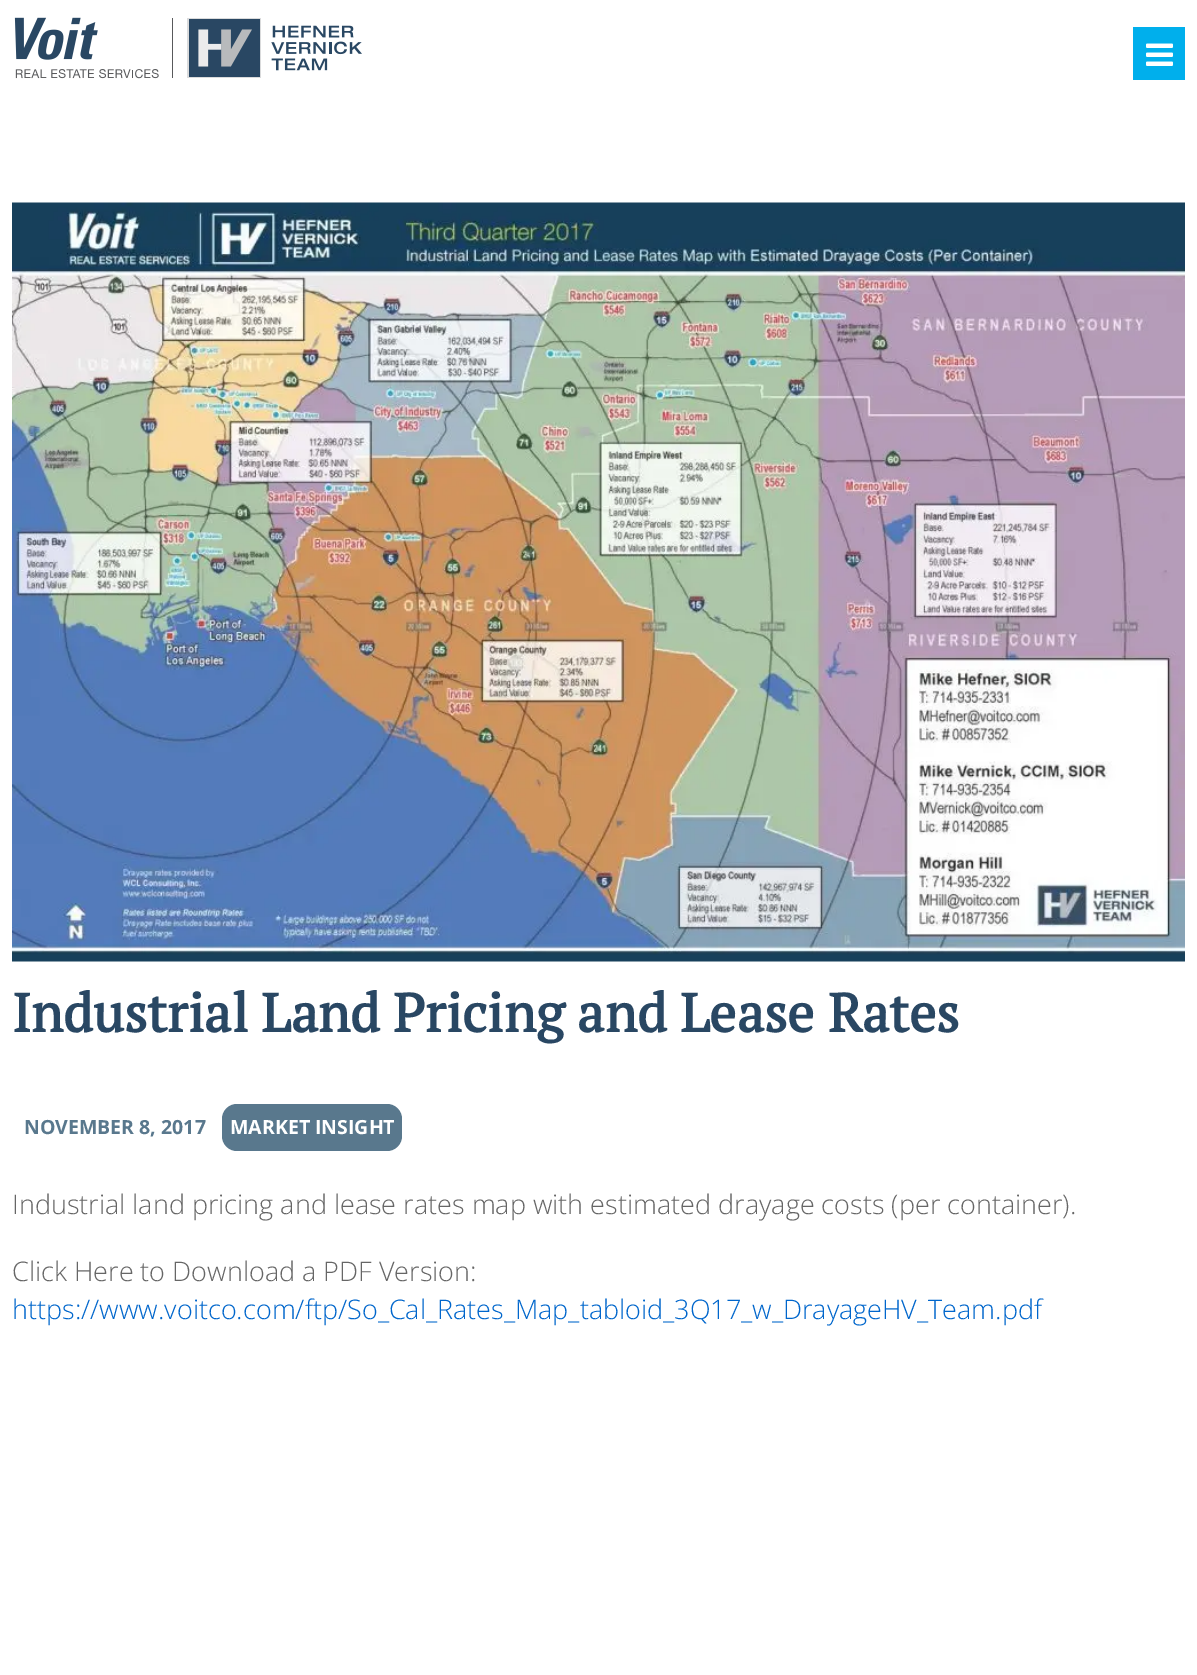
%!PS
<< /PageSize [1197 1675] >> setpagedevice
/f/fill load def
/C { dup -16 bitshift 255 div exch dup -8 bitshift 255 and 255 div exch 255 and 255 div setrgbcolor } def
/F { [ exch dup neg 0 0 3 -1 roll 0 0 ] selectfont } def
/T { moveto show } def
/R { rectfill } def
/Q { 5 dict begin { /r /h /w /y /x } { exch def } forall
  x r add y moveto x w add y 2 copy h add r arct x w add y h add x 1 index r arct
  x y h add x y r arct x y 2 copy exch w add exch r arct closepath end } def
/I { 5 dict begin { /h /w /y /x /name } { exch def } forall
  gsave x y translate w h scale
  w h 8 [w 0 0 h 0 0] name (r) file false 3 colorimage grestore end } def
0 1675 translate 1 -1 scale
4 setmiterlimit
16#FFFFFF C
0 0 1197 1675 R
(1.rgb) 14 17 348 62 I
16#00AFEC C
1133 27 52 53 R
(2.rgb) 1146 43 27 23 I
(3.rgb) 12 202 1173 760 I
/PTSerif-Bold 54 F
16#294763 C
(Industrial Land Pricing and Lease Rates) 12 1032 T
/OpenSans-Bold 19.5 F
16#59788D C
(NOVEMBER 8, 2017) 24 1134 T
222 1104 180 47 15 Q f
16#FFFFFF C
(MARKET INSIGHT) 230 1134 T
/OpenSans-Light 27 F
16#666666 C
(Industrial land pricing and lease rates map with estimated drayage costs \(per container\).) 12 1214 T
(Click Here to Download a PDF Version:) 12 1281 T
16#0066CC C
(https://www.voitco.com/ftp/So_Cal_Rates_Map_tabloid_3Q17_w_DrayageHV_Team.pdf) 12 1319 T
showpage
